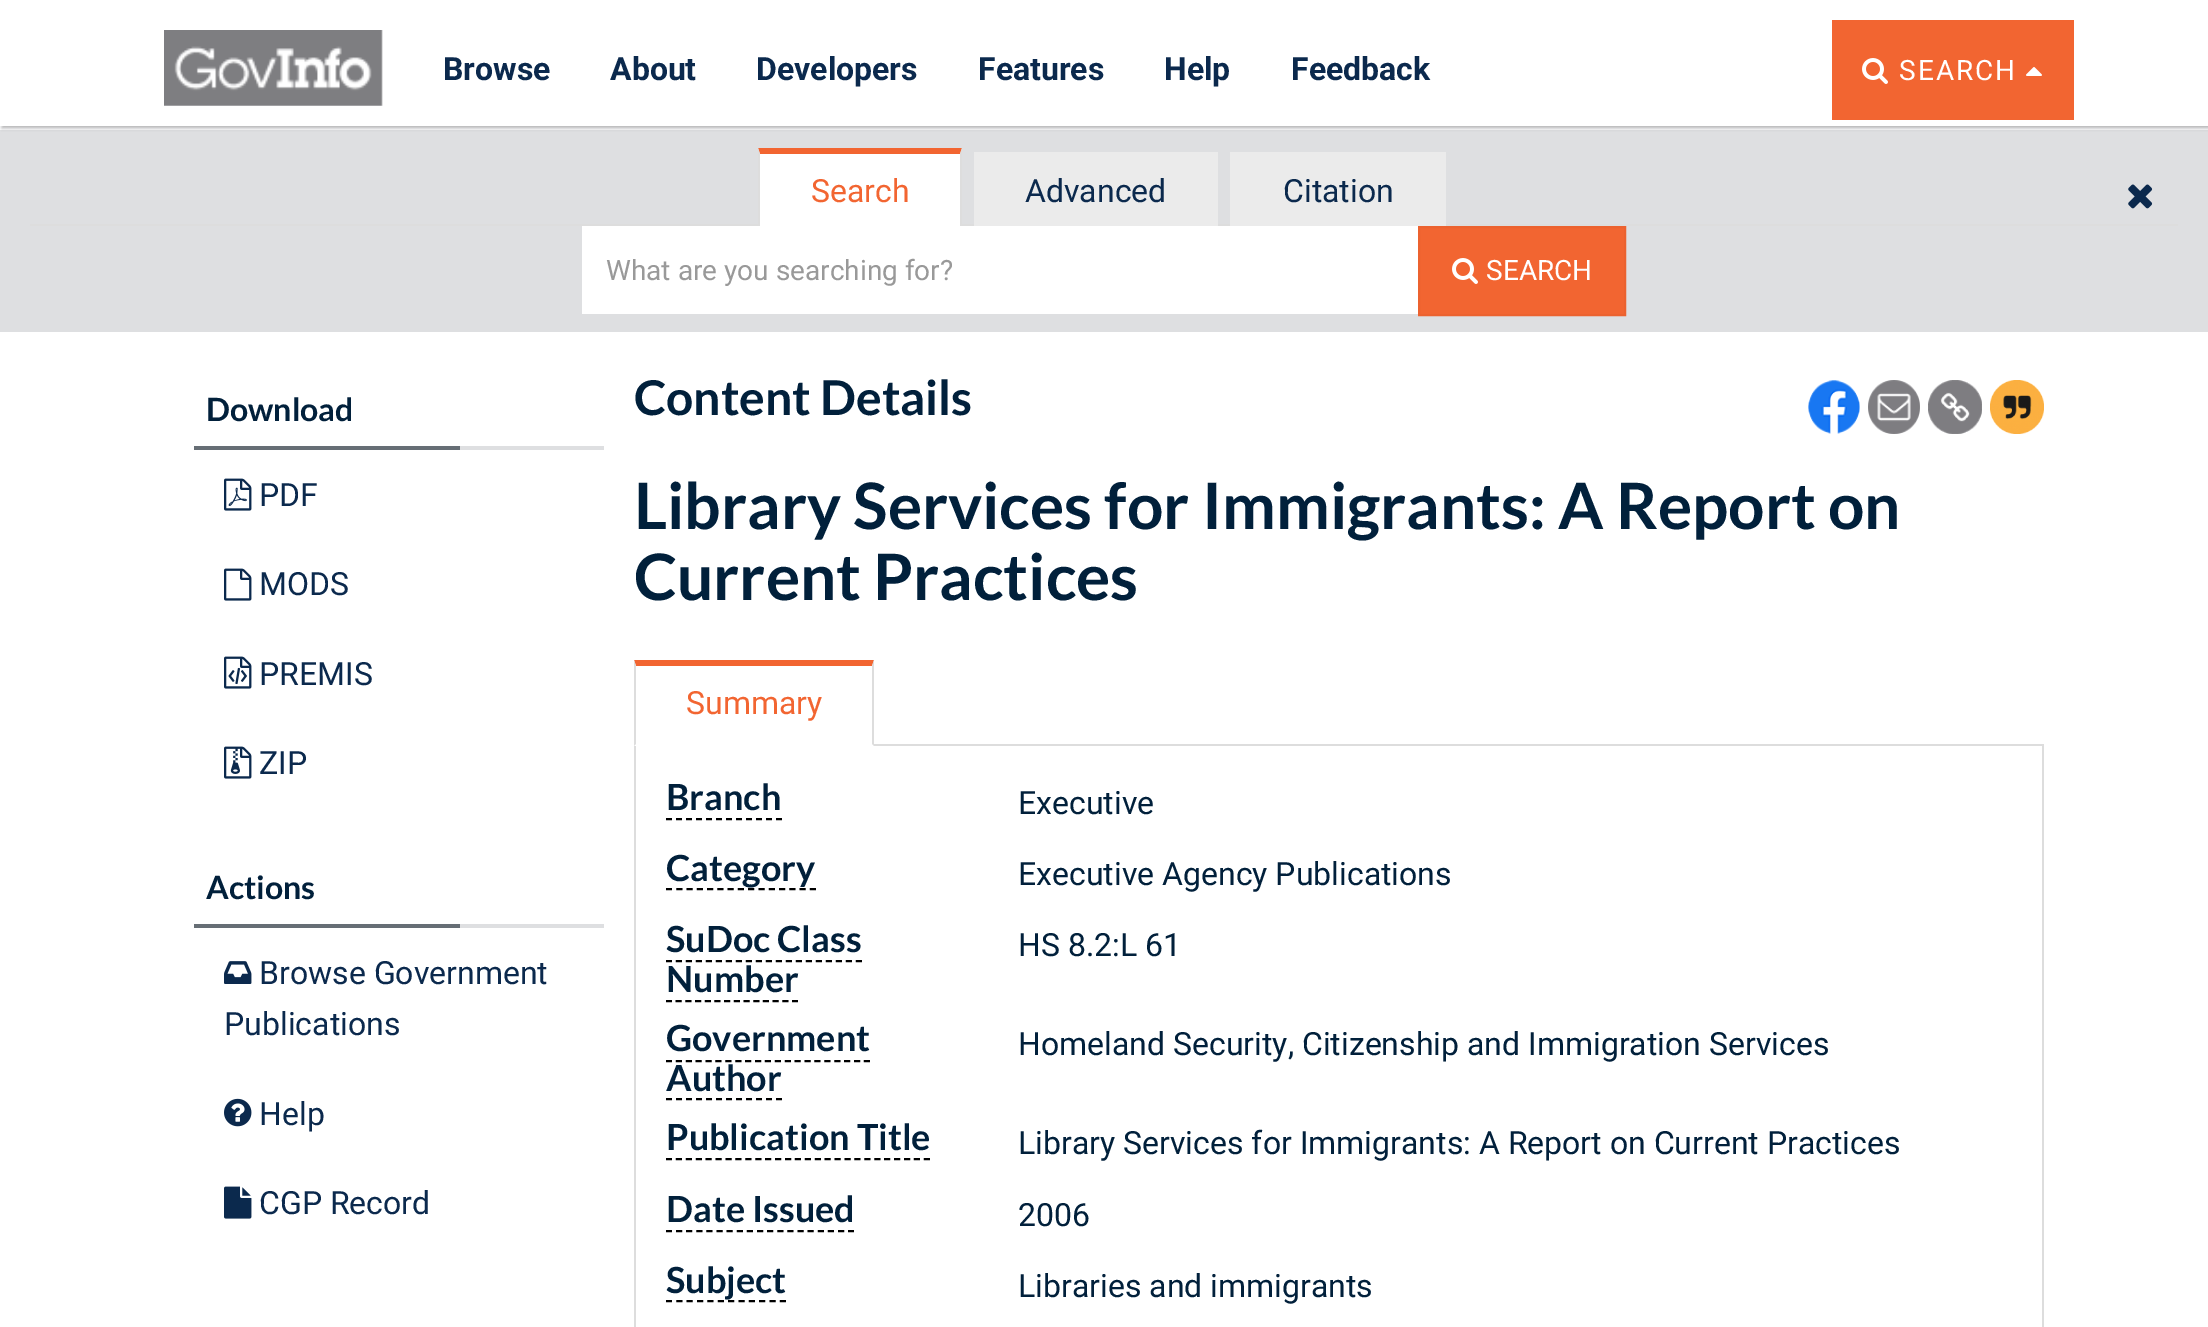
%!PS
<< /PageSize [2208 1327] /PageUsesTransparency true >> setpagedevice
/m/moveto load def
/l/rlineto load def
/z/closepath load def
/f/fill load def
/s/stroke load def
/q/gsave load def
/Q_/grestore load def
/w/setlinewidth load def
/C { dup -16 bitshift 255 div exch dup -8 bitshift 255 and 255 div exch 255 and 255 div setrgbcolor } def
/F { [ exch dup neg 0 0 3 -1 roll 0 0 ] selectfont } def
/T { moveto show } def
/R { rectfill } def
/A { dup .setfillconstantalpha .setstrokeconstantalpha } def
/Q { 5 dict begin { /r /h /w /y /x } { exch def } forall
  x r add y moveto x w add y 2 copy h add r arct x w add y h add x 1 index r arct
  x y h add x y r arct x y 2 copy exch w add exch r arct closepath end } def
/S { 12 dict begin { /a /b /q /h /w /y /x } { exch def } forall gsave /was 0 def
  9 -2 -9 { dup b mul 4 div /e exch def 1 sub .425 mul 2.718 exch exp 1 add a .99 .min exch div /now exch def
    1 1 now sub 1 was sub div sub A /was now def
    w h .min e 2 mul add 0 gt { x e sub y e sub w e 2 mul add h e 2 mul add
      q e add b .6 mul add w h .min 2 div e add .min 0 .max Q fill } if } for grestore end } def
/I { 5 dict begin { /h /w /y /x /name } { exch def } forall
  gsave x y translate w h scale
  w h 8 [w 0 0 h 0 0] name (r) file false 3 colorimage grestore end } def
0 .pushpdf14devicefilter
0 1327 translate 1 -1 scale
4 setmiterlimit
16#FFFFFF C
0 0 2208 1327 R
16#DEDFE1 C
0 130 2208 202 R
q
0 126 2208 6 rectclip
16#ACACAE C
2 2 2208 126 0 2 1 S
Q_
(1.rgb) 164 30 219 76 I
/Roboto-Bold 32 F
16#0B294D C
(Browse) 443 80 T
(About) 610 80 T
(Developers) 756 80 T
(Features) 978 80 T
(Help) 1164 80 T
(Feedback) 1291 80 T
16#F26531 C
1832 20 242 100 R
(2.rgb) 1862 58 26 26 I
/Roboto-Regular 28 F
16#FFFFFF C
1899 80 m 2 0 (SEARCH) ashow
(3.rgb) 2026 67 16 9 I
16#DDDDDD C
30 224 2148 2 R
16#FFFFFF C
758 148 204 78 R
16#F26531 C
758 148 m 204 0 l -2 6 l -200 0 l z f
16#DDDDDD C
962 148 m 0 86 l -2 -2 l 0 -78 l z f
758 234 m 0 -86 l 2 6 l 0 78 l z f
/Roboto-Regular 32 F
16#F26531 C
(Search) 811 202 T
16#EBEBEB C
974 152 244 74 R
16#0B294D C
(Advanced) 1025 202 T
16#EBEBEB C
1230 152 216 74 R
16#0B294D C
(Citation) 1283 202 T
16#FFFFFF C
582 226 836 88 R
/Roboto-Regular 28 F
16#999999 C
(What are you searching for?) 606 280 T
16#F26531 C
1419 227 m 206 0 l 0 88 l -206 0 l z q f Q_
16#EC622F C
2 w
s
(2.rgb) 1452 258 26 26 I
16#FFFFFF C
(SEARCH) 1486 280 T
(4.rgb) 2128 184 25 25 I
16#DEDFE1 C
460 446 144 4 R
/Lato-Bold 32 F
16#01203B C
(Download) 206 421 T
16#666E75 C
194 446 266 4 R
(5.rgb) 224 478 28 33 I
/Roboto-Regular 32 F
16#0B294D C
(PDF) 259 506 T
(6.rgb) 224 568 28 33 I
(MODS) 259 595 T
(7.rgb) 224 656 28 33 I
(PREMIS) 259 685 T
(8.rgb) 224 746 28 33 I
(ZIP) 259 774 T
16#DEDFE1 C
460 924 144 4 R
/Lato-Bold 32 F
16#01203B C
(Actions) 206 899 T
16#666E75 C
194 924 266 4 R
(9.rgb) 224 961 28 23 I
/Roboto-Regular 32 F
16#0B294D C
(Browse Government) 259 984 T
(Publications) 224 1035 T
(10.rgb) 224 1098 28 29 I
(Help) 259 1125 T
(11.rgb) 224 1186 28 33 I
(CGP Record) 259 1214 T
/Lato-Bold 48 F
16#01203B C
(Content Details) 634 415 T
(12.rgb) 1808 380 52 54 I
(13.rgb) 1868 380 52 54 I
(14.rgb) 1928 380 54 54 I
(15.rgb) 1990 380 54 54 I
/Lato-Bold 64 F
(Library Services for Immigrants: A Report on) 634 529 T
(Current Practices) 634 600 T
16#DDDDDD C
874 744 1170 2 R
16#F26531 C
634 660 m 240 0 l -2 6 l -236 0 l z f
16#DDDDDD C
874 660 m 0 86 l -2 -2 l 0 -78 l z f
634 746 m 0 -86 l 2 6 l 0 78 l z f
/Roboto-Regular 32 F
16#F26531 C
(Summary) 686 714 T
16#DDDDDD C
2042 746 2 581 R
634 746 2 581 R
/Lato-Bold 36 F
16#01203B C
(Branch) 666 810 T
16#000000 C
[6 4] 0 setdash
666 819 m 116 0 l s
/Roboto-Regular 32 F
16#01203B C
(Executive) 1018 814 T
/Lato-Bold 36 F
(Category) 666 881 T
16#000000 C
[6 4.28] 0 setdash
666 889 m 150 0 l s
/Roboto-Regular 32 F
16#01203B C
(Executive Agency Publications) 1018 885 T
/Lato-Bold 36 F
(SuDoc Class) 666 952 T
(Number) 666 992 T
16#000000 C
[6 4] 0 setdash
666 961 m 196 0 l s
[6 3.7] 0 setdash
666 1001 m 132 0 l s
/Roboto-Regular 32 F
16#01203B C
(HS 8.2:L 61) 1018 956 T
/Lato-Bold 36 F
(Government) 666 1051 T
(Author) 666 1091 T
16#000000 C
[6 3.9] 0 setdash
666 1061 m 204 0 l s
[6 4] 0 setdash
666 1099 m 116 0 l s
/Roboto-Regular 32 F
16#01203B C
(Homeland Security, Citizenship and Immigration Services) 1018 1055 T
/Lato-Bold 36 F
(Publication Title) 666 1150 T
16#000000 C
[6 3.92] 0 setdash
666 1159 m 264 0 l s
/Roboto-Regular 32 F
16#01203B C
(Library Services for Immigrants: A Report on Current Practices) 1018 1154 T
/Lato-Bold 36 F
(Date Issued) 666 1222 T
16#000000 C
[6 4.12] 0 setdash
666 1231 m 188 0 l s
/Roboto-Regular 32 F
16#01203B C
(2006) 1018 1226 T
/Lato-Bold 36 F
(Subject) 666 1293 T
16#000000 C
[6 4.36] 0 setdash
666 1301 m 120 0 l s
/Roboto-Regular 32 F
16#01203B C
(Libraries and immigrants) 1018 1297 T
.poppdf14devicefilter showpage
